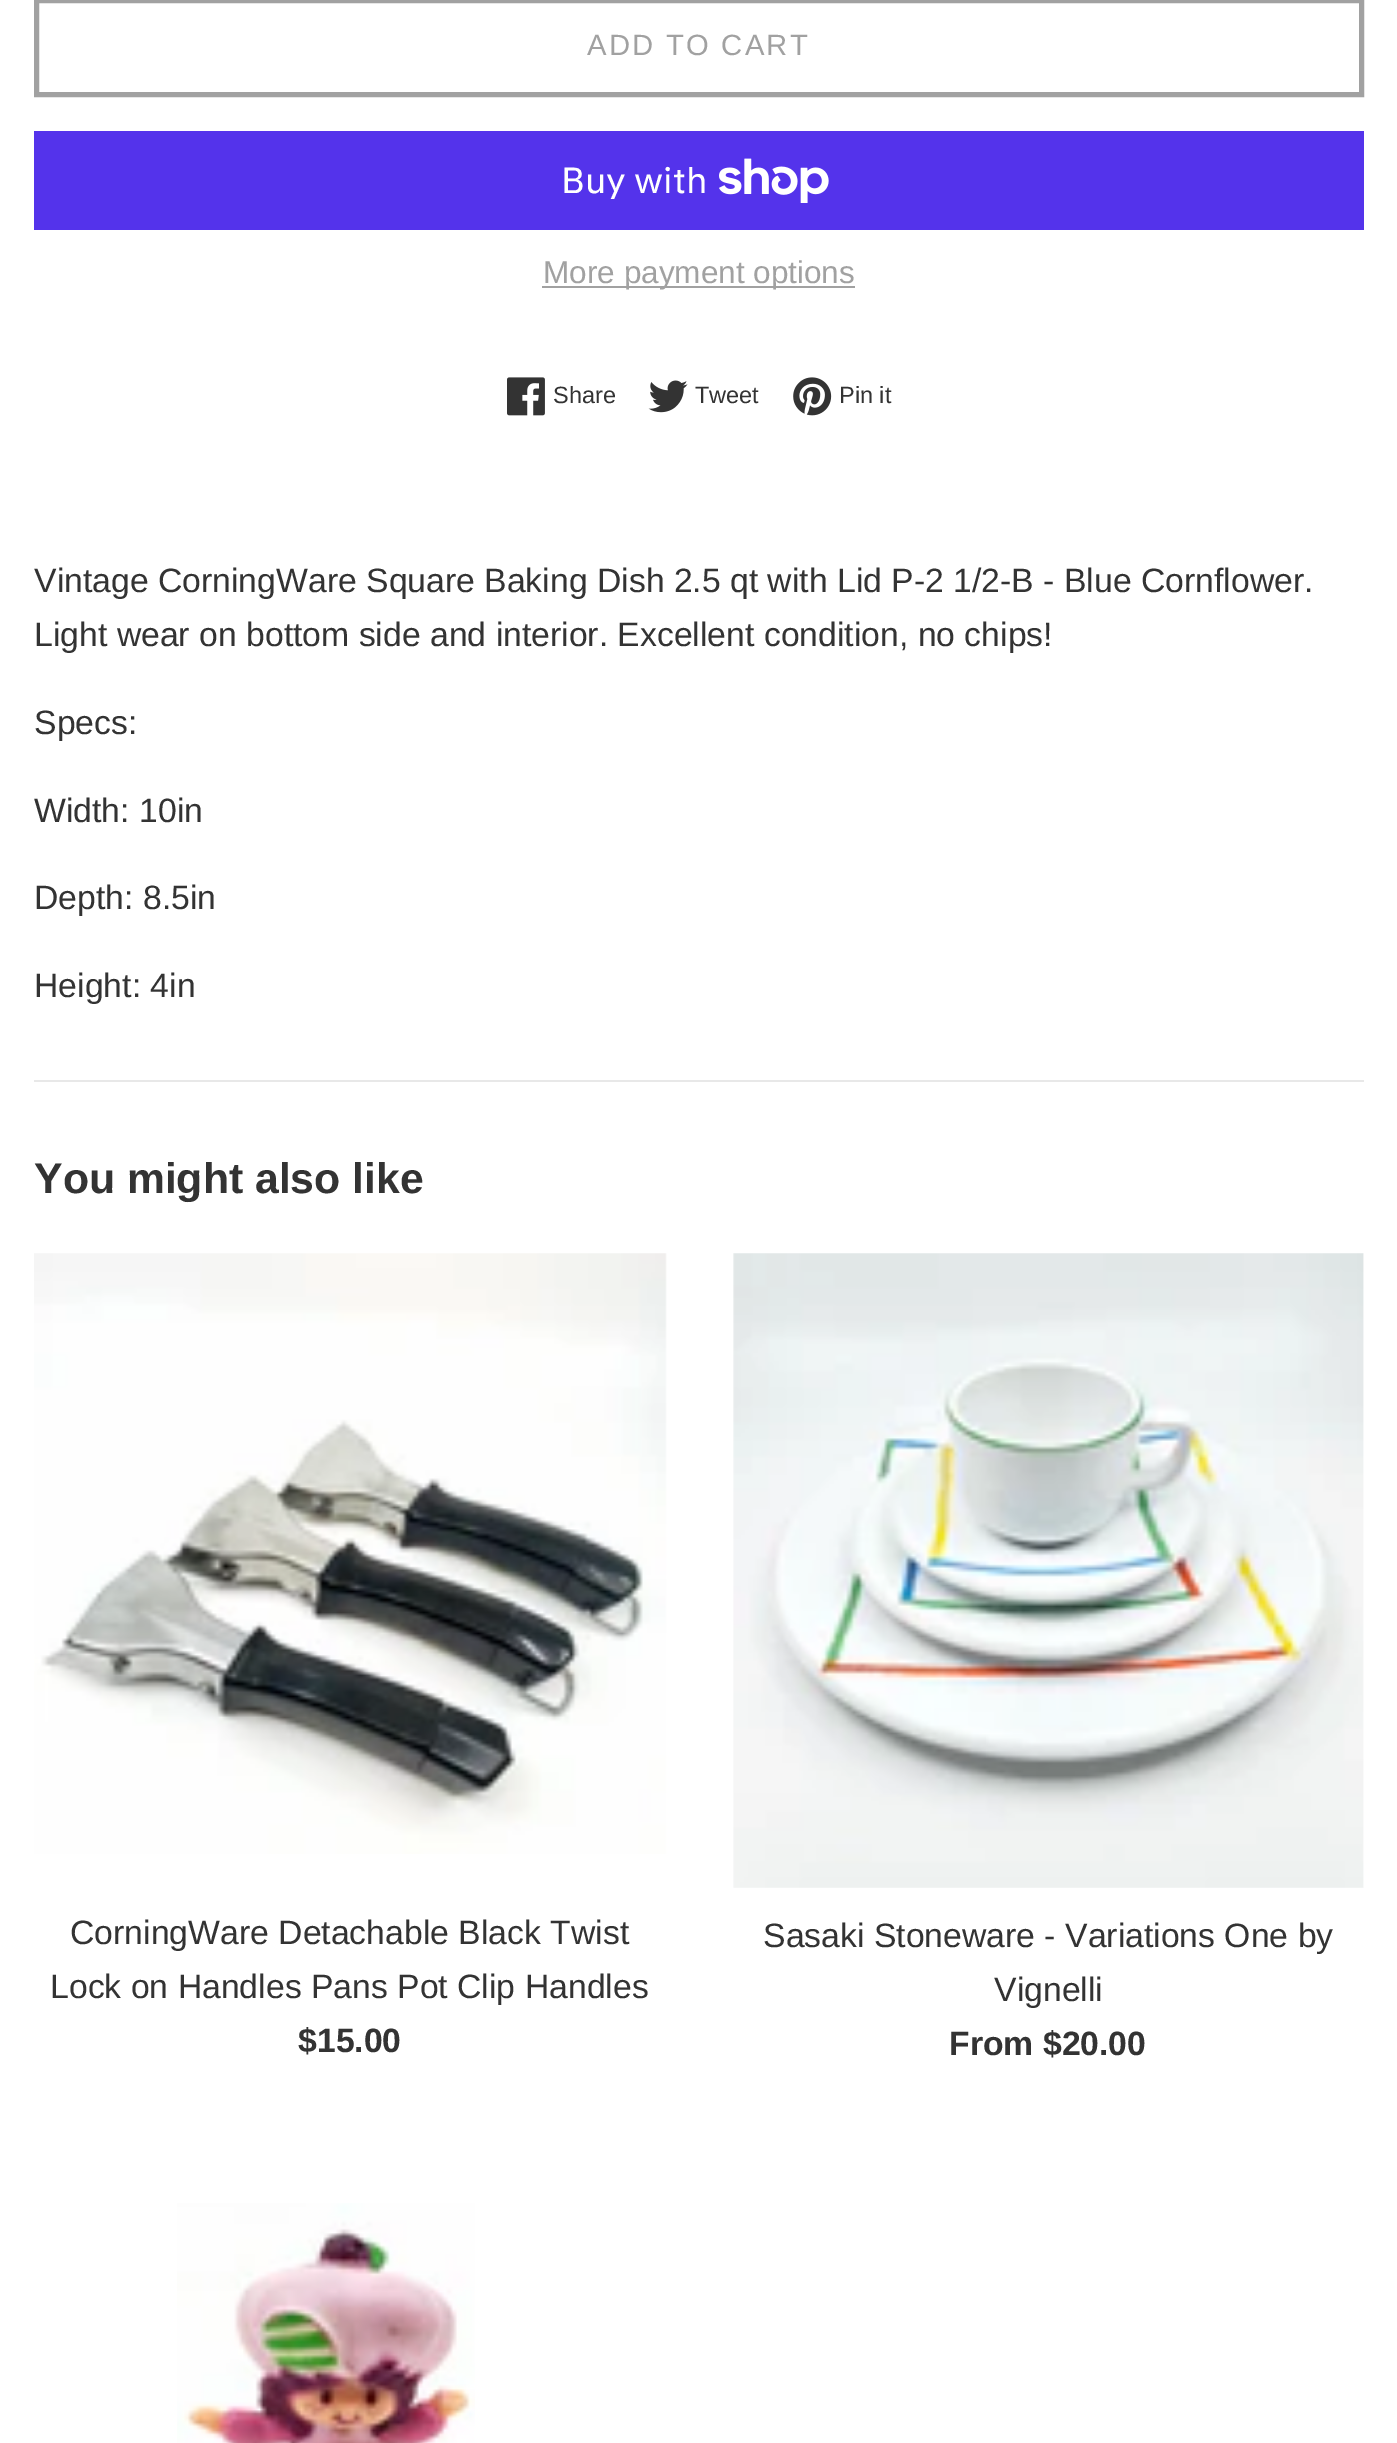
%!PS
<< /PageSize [1397 2443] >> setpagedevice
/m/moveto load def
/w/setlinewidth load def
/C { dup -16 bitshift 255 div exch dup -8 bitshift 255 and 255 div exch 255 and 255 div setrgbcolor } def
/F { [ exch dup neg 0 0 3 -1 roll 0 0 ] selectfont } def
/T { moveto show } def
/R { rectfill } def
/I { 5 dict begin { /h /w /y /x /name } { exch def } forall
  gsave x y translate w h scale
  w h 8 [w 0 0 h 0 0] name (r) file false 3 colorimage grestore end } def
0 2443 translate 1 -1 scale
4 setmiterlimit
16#FFFFFF C
0 0 1397 2443 R
16#A1A1A1 C
5 w
36.5 .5 1325 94 rectstroke
/LiberationSans-Regular 29.25 F
587 55 m 2.25 0 (ADD TO CART) ashow
16#5433EB C
34 131 1330 99 R
/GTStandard-Regular 36 F
16#FFFFFF C
(Buy with) 561 193 T
(1.rgb) 719 158 110 45 I
16#A1A1A1 C
542 286 313 2 R
/LiberationSans-Regular 31.5 F
(More payment options) 543 283 T
(2.rgb) 507 377 38 39 I
/LiberationSans-Regular 23.5 F
16#333333 C
(Share) 553 403 T
(3.rgb) 648 380 40 33 I
(Tweet) 695 403 T
(4.rgb) 793 377 39 39 I
(Pin it) 839 403 T
/LiberationSans-Regular 33.75 F
(Vintage CorningWare Square Baking Dish 2.5 qt with Lid P-2 1/2-B - Blue Cornflower.) 34 592 T
(Light wear on bottom side and interior. Excellent condition, no chips!) 34 646 T
(Specs:) 34 734 T
(Width: 10in) 34 822 T
(Depth: 8.5in) 34 909 T
(Height: 4in) 34 997 T
16#E8E8E8 C
34 1080 1330 2 R
/LiberationSans-Bold 42.75 F
16#333333 C
(You might also like) 34 1193 T
(5.rgb) 34 1253 633 601 I
/LiberationSans-Regular 33.75 F
(CorningWare Detachable Black Twist) 70 1944 T
(Lock on Handles Pans Pot Clip Handles) 50 1998 T
/LiberationSans-Bold 33.75 F
($15.00) 298 2052 T
(6.rgb) 733 1253 631 635 I
/LiberationSans-Regular 33.75 F
(Sasaki Stoneware - Variations One by) 763 1947 T
(Vignelli) 994 2001 T
/LiberationSans-Bold 33.75 F
(From $20.00) 949 2055 T
(7.rgb) 177 2203 298 240 I
showpage
